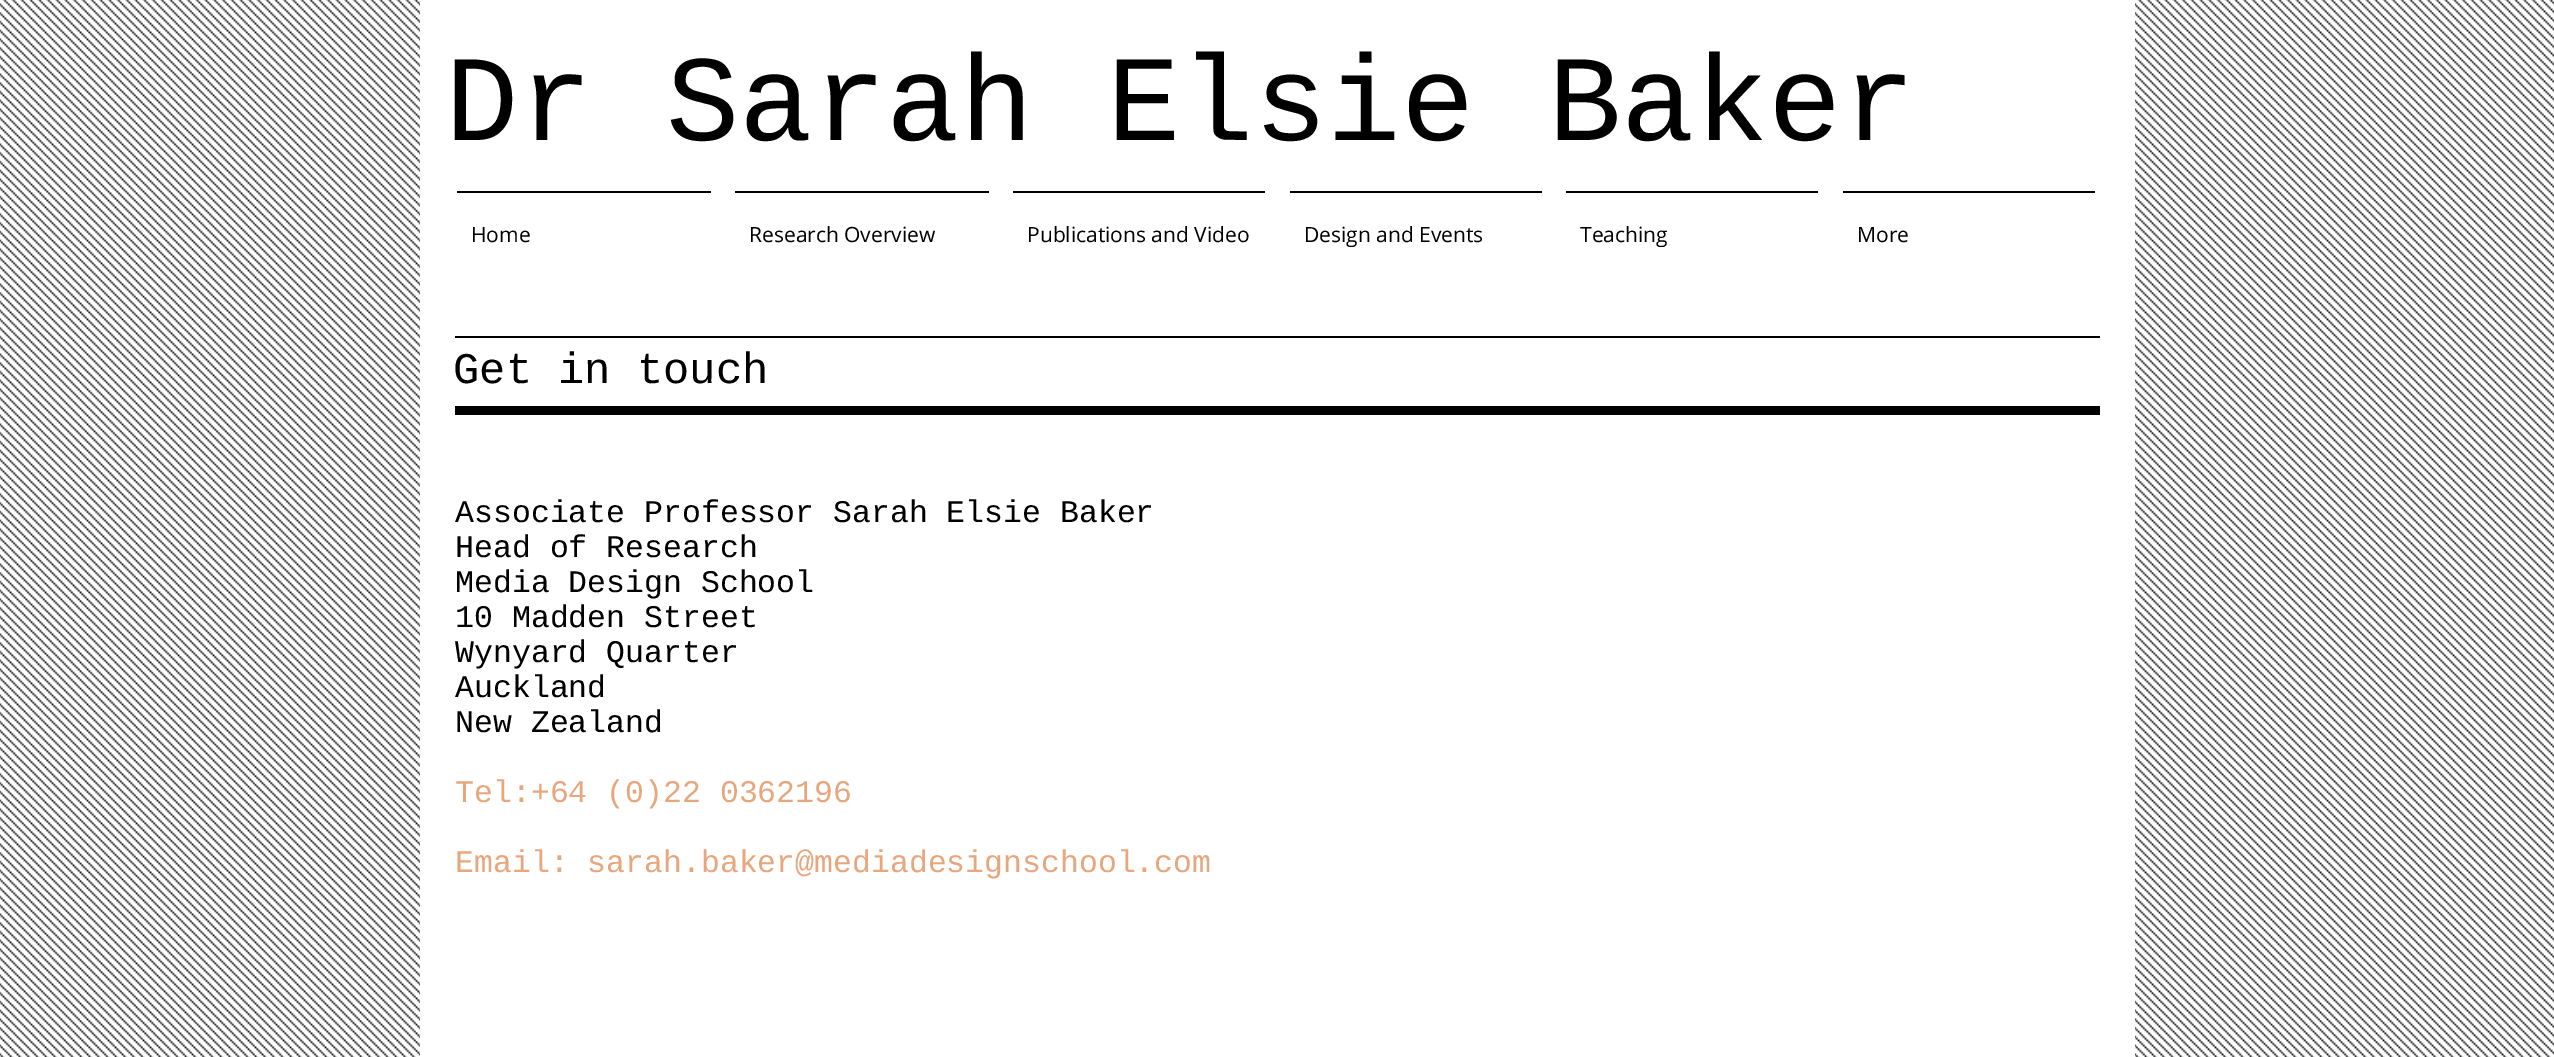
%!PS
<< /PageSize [2554 1057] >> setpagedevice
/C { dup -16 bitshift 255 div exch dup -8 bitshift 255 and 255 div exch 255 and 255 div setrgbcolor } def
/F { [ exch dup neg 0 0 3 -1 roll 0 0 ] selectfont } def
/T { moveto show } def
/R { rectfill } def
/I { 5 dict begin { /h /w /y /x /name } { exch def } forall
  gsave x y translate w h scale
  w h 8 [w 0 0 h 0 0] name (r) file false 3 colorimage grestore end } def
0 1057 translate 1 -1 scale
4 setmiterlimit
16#FFFFFF C
0 0 2554 1057 R
(1.rgb) 0 0 2554 1057 I
420 0 1715 1057 R
/LiberationMono-Regular 122.5 F
16#000000 C
(Dr Sarah Elsie Baker) 445 140 T
457 191 254 2 R
/OpenSans-Regular 21 F
(Home) 471 242 T
735 191 254 2 R
(Research Overview) 749 242 T
1013 191 252 2 R
(Publications and Video) 1027 242 T
1290 191 252 2 R
(Design and Events) 1304 242 T
1566 191 252 2 R
(Teaching) 1580 242 T
1843 191 252 2 R
(More) 1857 242 T
455 336 1645 2 R
/LiberationMono-Regular 43.75 F
(Get in touch) 453 383 T
455 406 1645 9 R
/LiberationMono-Regular 31.5 F
(Associate Professor Sarah Elsie Baker) 455 522 T
(Head of Research) 455 557 T
(Media Design School) 455 592 T
(10 Madden Street) 455 627 T
(Wynyard Quarter) 455 662 T
(Auckland) 455 697 T
(New Zealand) 455 732 T
16#E8A67D C
(Tel:+64 \(0\)22 0362196) 455 802 T
(Email: sarah.baker@mediadesignschool.com) 455 872 T
showpage
